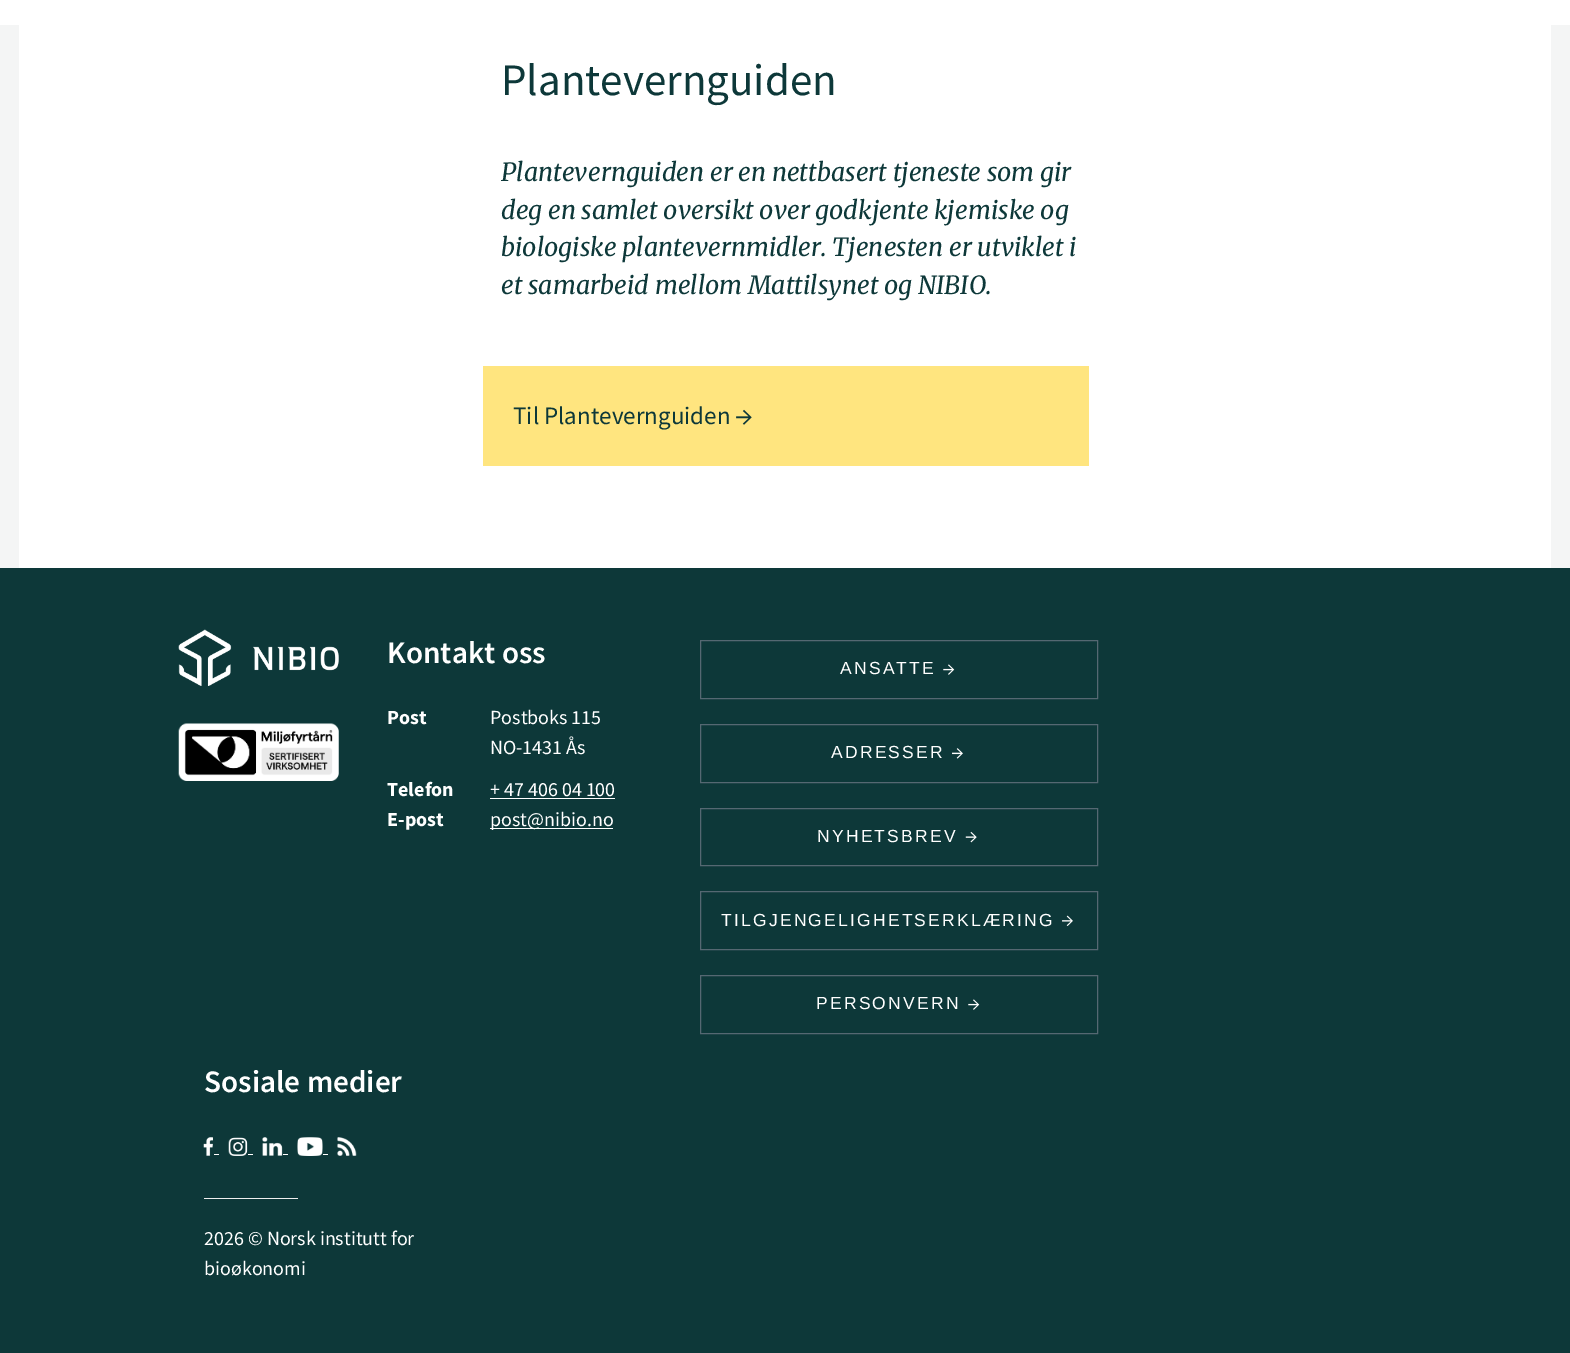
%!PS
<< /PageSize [1570 1353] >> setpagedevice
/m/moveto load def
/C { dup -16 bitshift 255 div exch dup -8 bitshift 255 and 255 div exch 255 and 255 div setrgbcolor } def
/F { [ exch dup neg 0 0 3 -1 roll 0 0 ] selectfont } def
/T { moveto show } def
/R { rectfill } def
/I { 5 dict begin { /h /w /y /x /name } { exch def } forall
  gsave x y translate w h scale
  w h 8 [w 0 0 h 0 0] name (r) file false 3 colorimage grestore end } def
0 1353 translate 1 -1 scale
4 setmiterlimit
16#F4F5F5 C
0 0 1570 1353 R
16#FFFFFF C
0 0 1570 25 R
19 25 1532 543 R
/SourceSansPro-Regular 45 F
16#0D3839 C
(Plantevernguiden) 501 95 T
/Merriweather-LightItalic 25 F
(Plantevernguiden er en nettbasert tjeneste som gir) 501 181 T
(deg en samlet oversikt over godkjente kjemiske og) 501 219 T
(biologiske plantevernmidler. Tjenesten er utviklet i) 501 256 T
(et samarbeid mellom Mattilsynet og NIBIO.) 501 294 T
16#FFE57F C
483 366 606 100 R
/SourceSansPro-Regular 25 F
16#0D3839 C
(Til Plantevernguiden) 513 424 T
(1.rgb) 736 409 16 16 I
0 568 1570 785 R
(2.rgb) 178 629 161 57 I
(3.rgb) 178 723 161 58 I
/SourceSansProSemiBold-SemiBold 31.25 F
16#FFFFFF C
(Kontakt oss) 387 663 T
/SourceSansPro-Bold 20 F
(Post) 387 724 T
/SourceSansPro-Regular 20 F
(Postboks 115) 490 724 T
(NO-1431 Ås) 490 754 T
/SourceSansPro-Bold 20 F
(Telefon) 387 796 T
/SourceSansPro-Regular 20 F
(+ 47 406 04 100) 490 796 T
490 798 125 1 R
/SourceSansPro-Bold 20 F
(E-post) 387 826 T
490 828 123 1 R
/SourceSansPro-Regular 20 F
(post@nibio.no) 490 826 T
16#556872 C
700.5 640.5 397 58 rectstroke
/LiberationSans-Regular 17.5 F
16#FFFFFF C
840 674 m 2.2 0 (ANSATTE) ashow
(4.rgb) 943 664 12 11 I
16#556872 C
700.5 724.5 397 58 rectstroke
16#FFFFFF C
831 758 m 2.2 0 (ADRESSER) ashow
(5.rgb) 952 748 11 11 I
16#556872 C
700.5 808.5 397 57 rectstroke
16#FFFFFF C
817 842 m 2.2 0 (NYHETSBREV) ashow
(6.rgb) 965 831 12 12 I
16#556872 C
700.5 891.5 397 58 rectstroke
16#FFFFFF C
721 926 m 2.2 0 (TILGJENGELIGHETSERKLÆRING) ashow
(7.rgb) 1062 915 11 11 I
16#556872 C
700.5 975.5 397 58 rectstroke
16#FFFFFF C
816 1009 m 2.2 0 (PERSONVERN) ashow
(4.rgb) 968 999 12 11 I
/SourceSansProSemiBold-SemiBold 31.25 F
(Sosiale medier) 204 1092 T
(8.rgb) 203 1137 10 19 I
214 1154 5 1 R
(9.rgb) 228 1137 20 19 I
248 1154 5 1 R
(10.rgb) 262 1137 21 19 I
283 1154 5 1 R
(11.rgb) 297 1137 26 19 I
323 1154 5 1 R
(12.rgb) 337 1137 20 19 I
16#EEEEEE C
204 1198 94 1 R
/SourceSansPro-Regular 20 F
16#FFFFFF C
(2026 © Norsk institutt for) 204 1245 T
(bioøkonomi) 204 1275 T
showpage
